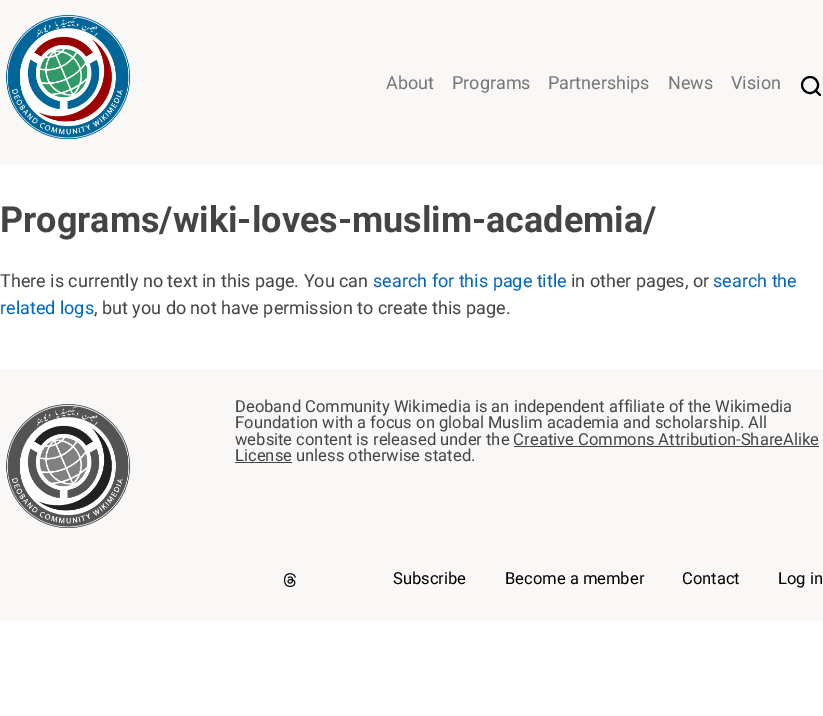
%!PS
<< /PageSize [823 716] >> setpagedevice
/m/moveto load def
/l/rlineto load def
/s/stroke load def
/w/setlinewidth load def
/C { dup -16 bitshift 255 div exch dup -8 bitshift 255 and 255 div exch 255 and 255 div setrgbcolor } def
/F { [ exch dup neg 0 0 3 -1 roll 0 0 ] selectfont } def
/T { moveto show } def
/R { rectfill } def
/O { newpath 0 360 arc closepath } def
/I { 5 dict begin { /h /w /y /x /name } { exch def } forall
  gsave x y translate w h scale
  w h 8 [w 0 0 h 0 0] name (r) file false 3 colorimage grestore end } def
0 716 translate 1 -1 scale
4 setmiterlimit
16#FFFFFF C
0 0 823 716 R
16#FAF7F7 C
0 0 823 165 R
(1.rgb) 6 15 125 124 I
/Roboto-Regular 18 F
16#767676 C
(About) 386 89 T
(Programs) 452 89 T
(Partnerships) 548 89 T
(News) 668 89 T
(Vision) 731 89 T
16#000000 C
2 w
810 85 8 O s
1 setlinecap
1 setlinejoin
820 95 m -4.5 -4.5 l s
/Roboto-Bold 36 F
16#444444 C
(Programs/wiki-loves-muslim-academia/) 0 232 T
/Roboto-Regular 18 F
(There is currently no text in this page. You can) 0 287 T
16#0066BF C
(search for this page title) 373 287 T
16#444444 C
(in other pages, or) 571 287 T
16#0066BF C
(search the) 713 287 T
(related logs) 0 314 T
16#444444 C
(, but you do not have permission to create this page.) 94 314 T
16#FAF7F7 C
0 369 823 253 R
(2.rgb) 6 404 125 124 I
/Roboto-Regular 16.55 F
16#444444 C
(Deoband Community Wikimedia is an independent affiliate of the Wikimedia) 235 412 T
(Foundation with a focus on global Muslim academia and scholarship. All) 235 428 T
(website content is released under the Creative Commons Attribution-ShareAlike) 235 445 T
514 446 305 1 R
(License unless otherwise stated.) 235 461 T
235 462 57 1 R
(3.rgb) 284 573 12 14 I
16#000000 C
(Subscribe) 393 584 T
(Become a member) 505 584 T
(Contact) 682 584 T
(Log in) 778 584 T
showpage
